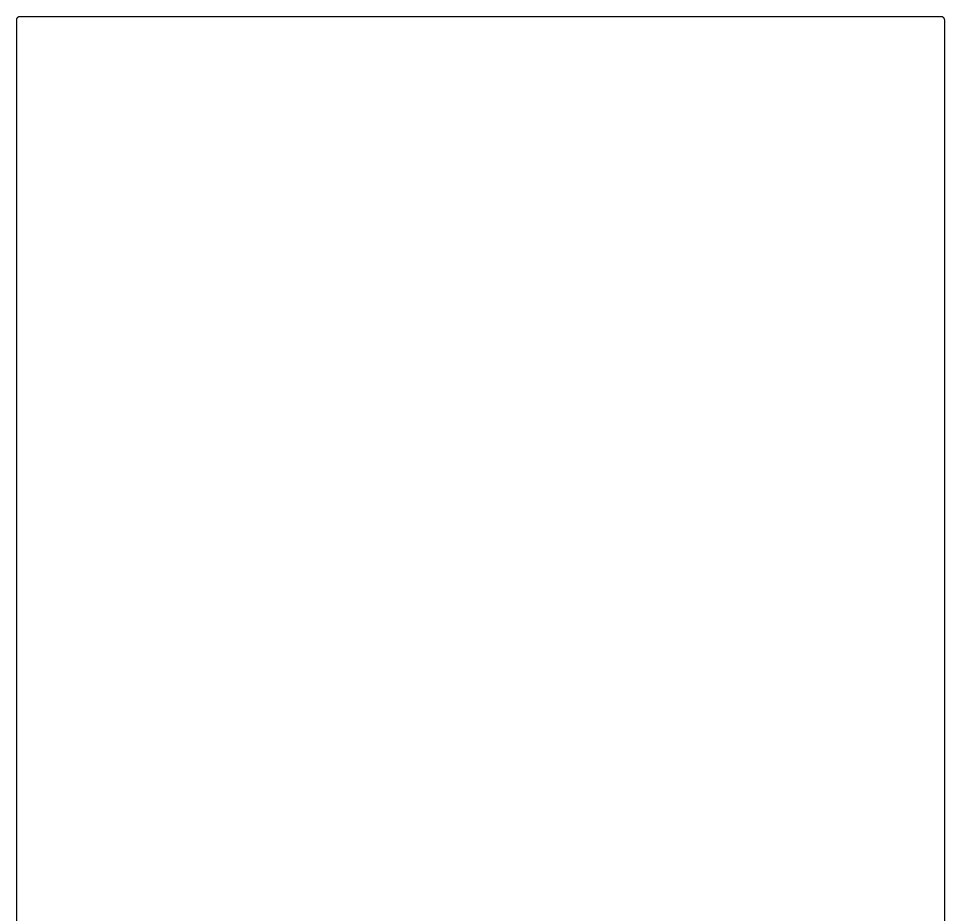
%!PS
<< /PageSize [961 921] >> setpagedevice
/s/stroke load def
/C { dup -16 bitshift 255 div exch dup -8 bitshift 255 and 255 div exch 255 and 255 div setrgbcolor } def
/R { rectfill } def
/Q { 5 dict begin { /r /h /w /y /x } { exch def } forall
  x r add y moveto x w add y 2 copy h add r arct x w add y h add x 1 index r arct
  x y h add x y r arct x y 2 copy exch w add exch r arct closepath end } def
0 921 translate 1 -1 scale
4 setmiterlimit
16#FFFFFF C
0 0 961 921 R
16#000000 C
16.5 16.5 928 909 3.5 Q s
showpage
